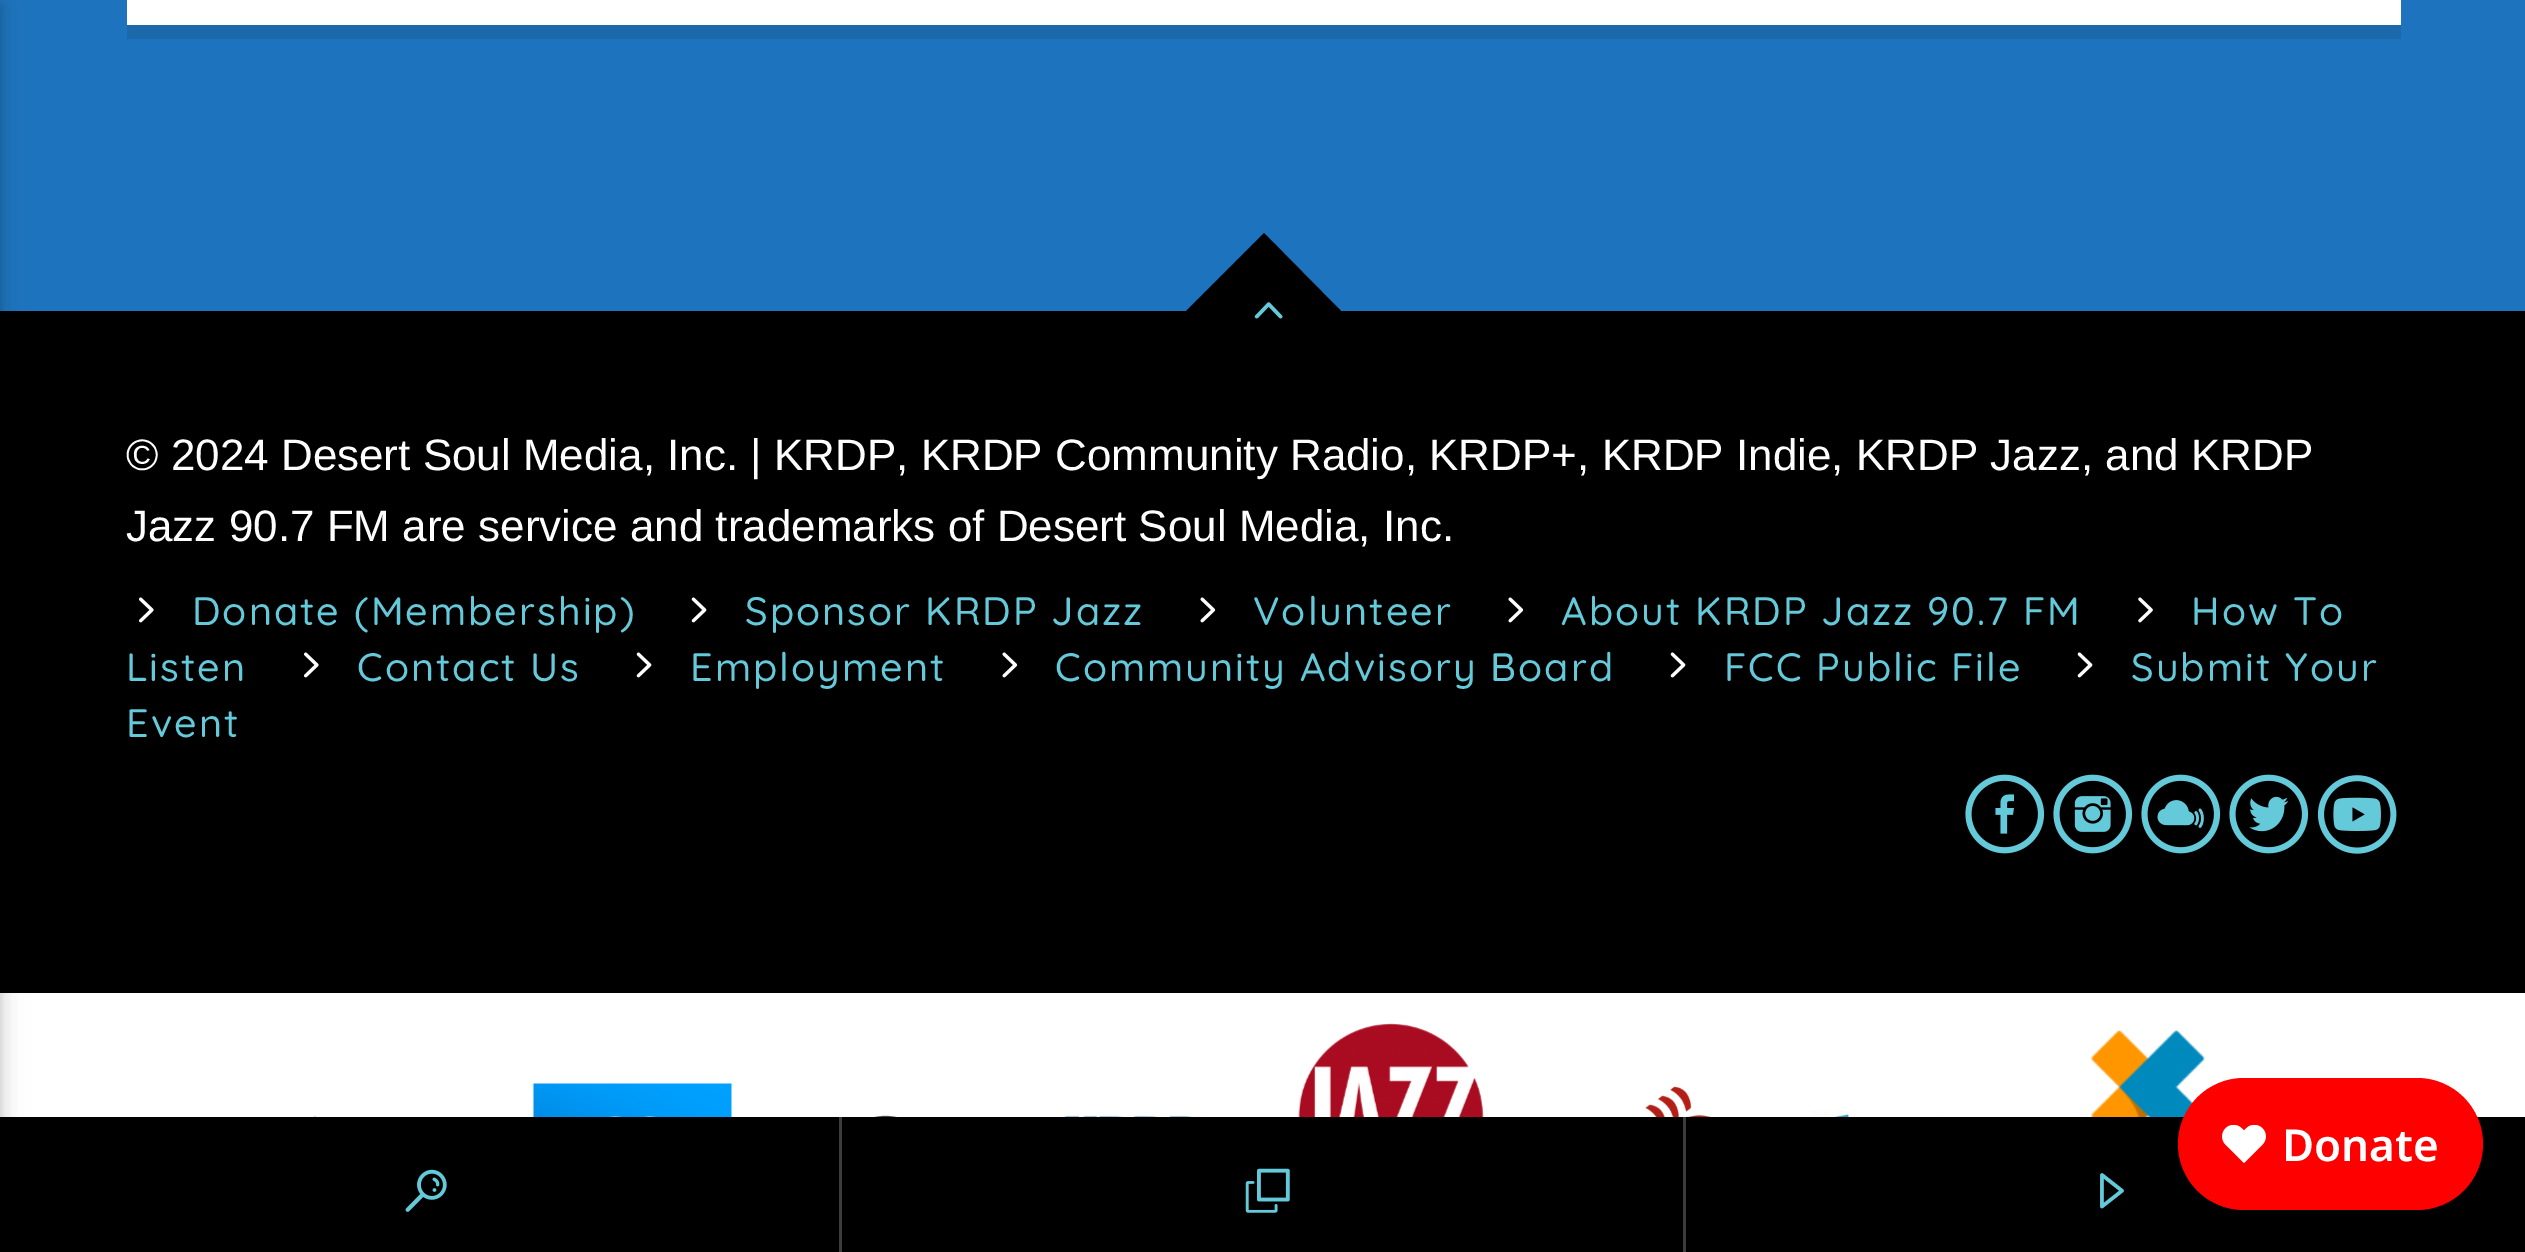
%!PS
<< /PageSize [2525 1252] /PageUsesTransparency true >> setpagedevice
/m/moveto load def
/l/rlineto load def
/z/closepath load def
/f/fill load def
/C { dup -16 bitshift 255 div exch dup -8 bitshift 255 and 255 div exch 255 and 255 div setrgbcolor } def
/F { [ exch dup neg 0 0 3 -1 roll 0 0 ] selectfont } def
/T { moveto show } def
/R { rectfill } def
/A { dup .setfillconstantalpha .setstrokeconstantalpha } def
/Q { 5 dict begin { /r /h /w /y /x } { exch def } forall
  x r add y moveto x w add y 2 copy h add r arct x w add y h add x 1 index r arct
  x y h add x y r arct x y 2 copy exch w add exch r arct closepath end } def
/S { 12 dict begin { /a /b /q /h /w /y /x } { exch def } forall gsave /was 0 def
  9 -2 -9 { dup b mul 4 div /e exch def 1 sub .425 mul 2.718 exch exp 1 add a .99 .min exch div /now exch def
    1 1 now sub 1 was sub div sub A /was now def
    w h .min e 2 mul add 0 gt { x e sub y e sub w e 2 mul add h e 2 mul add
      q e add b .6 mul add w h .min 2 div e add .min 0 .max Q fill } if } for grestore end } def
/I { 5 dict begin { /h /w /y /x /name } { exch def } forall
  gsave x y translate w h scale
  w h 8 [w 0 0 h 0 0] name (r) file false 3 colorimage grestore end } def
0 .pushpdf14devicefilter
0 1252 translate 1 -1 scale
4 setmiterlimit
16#FFFFFF C
0 0 2525 1252 R
16#1E73BE C
0 0 2525 311 R
16#1B68AB C
127 25 m 0 14 l 2274 0 l 0 -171 l 0 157 l z f
16#FFFFFF C
127 0 2274 25 R
16#000000 C
0 311 2525 682 R
0 1117 2525 135 R
-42 6 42 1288 0 14 .12 S
-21 6 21 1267 0 7 .16 S
1186 311 m 78 -78 l 77 78 l -77 78 l z f
(1.rgb) 1254 302 29 17 I
/Arimo-Regular 44 F
16#FFFFFF C
(© 2024 Desert Soul Media, Inc. | KRDP, KRDP Community Radio, KRDP+, KRDP Indie, KRDP Jazz, and KRDP) 126 470 T
(Jazz 90.7 FM are service and trademarks of Desert Soul Media, Inc.) 126 541 T
(2.rgb) 139 597 15 26 I
/Quicksand-Medium 39.6 F
16#64C9D9 C
192 625 m 2 0 (Donate \(Membership\)) ashow
(3.rgb) 691 597 16 26 I
745 625 m 2 0 (Sponsor KRDP Jazz) ashow
(4.rgb) 1200 597 16 26 I
1253 625 m 2 0 (Volunteer) ashow
(4.rgb) 1508 597 16 26 I
1561 625 m 2 0 (About KRDP Jazz 90.7 FM) ashow
(5.rgb) 2138 597 15 26 I
2191 625 m 2 0 (How To) ashow
126 681 m 2 0 (Listen) ashow
(2.rgb) 304 652 15 26 I
357 681 m 2 0 (Contact Us) ashow
(3.rgb) 636 652 16 26 I
690 681 m 2 0 (Employment) ashow
(4.rgb) 1002 652 16 26 I
1055 681 m 2 0 (Community Advisory Board) ashow
(3.rgb) 1670 652 16 26 I
1724 681 m 2 0 (FCC Public File) ashow
(3.rgb) 2077 652 16 26 I
2131 681 m 2 0 (Submit Your) ashow
126 737 m 2 0 (Event) ashow
(6.rgb) 1965 774 80 80 I
(7.rgb) 2053 774 80 80 I
(8.rgb) 2141 774 80 80 I
(9.rgb) 2229 774 80 80 I
(10.rgb) 2317 775 80 79 I
16#3C3C3C C
839 1117 3 135 R
(11.rgb) 405 1169 42 43 I
1683 1117 3 135 R
(12.rgb) 1245 1168 45 45 I
(13.rgb) 2100 1173 24 36 I
(14.rgb) 313 1115 5 2 I
(15.rgb) 533 1083 199 34 I
(16.rgb) 874 1115 23 2 I
(17.rgb) 1060 1115 164 2 I
(18.rgb) 1298 1023 186 94 I
(19.rgb) 1645 1086 66 31 I
(20.rgb) 1795 1111 199 6 I
(21.rgb) 2090 1029 115 88 I
(22.rgb) 2470 1105 12 12 I
16#FF0000 C
2178 1078 305 132 66 Q f
(23.rgb) 2222 1125 44 38 I
/NotoSans-SemiBold 44 F
16#FFFFFF C
(Donate) 2282 1161 T
.poppdf14devicefilter showpage
